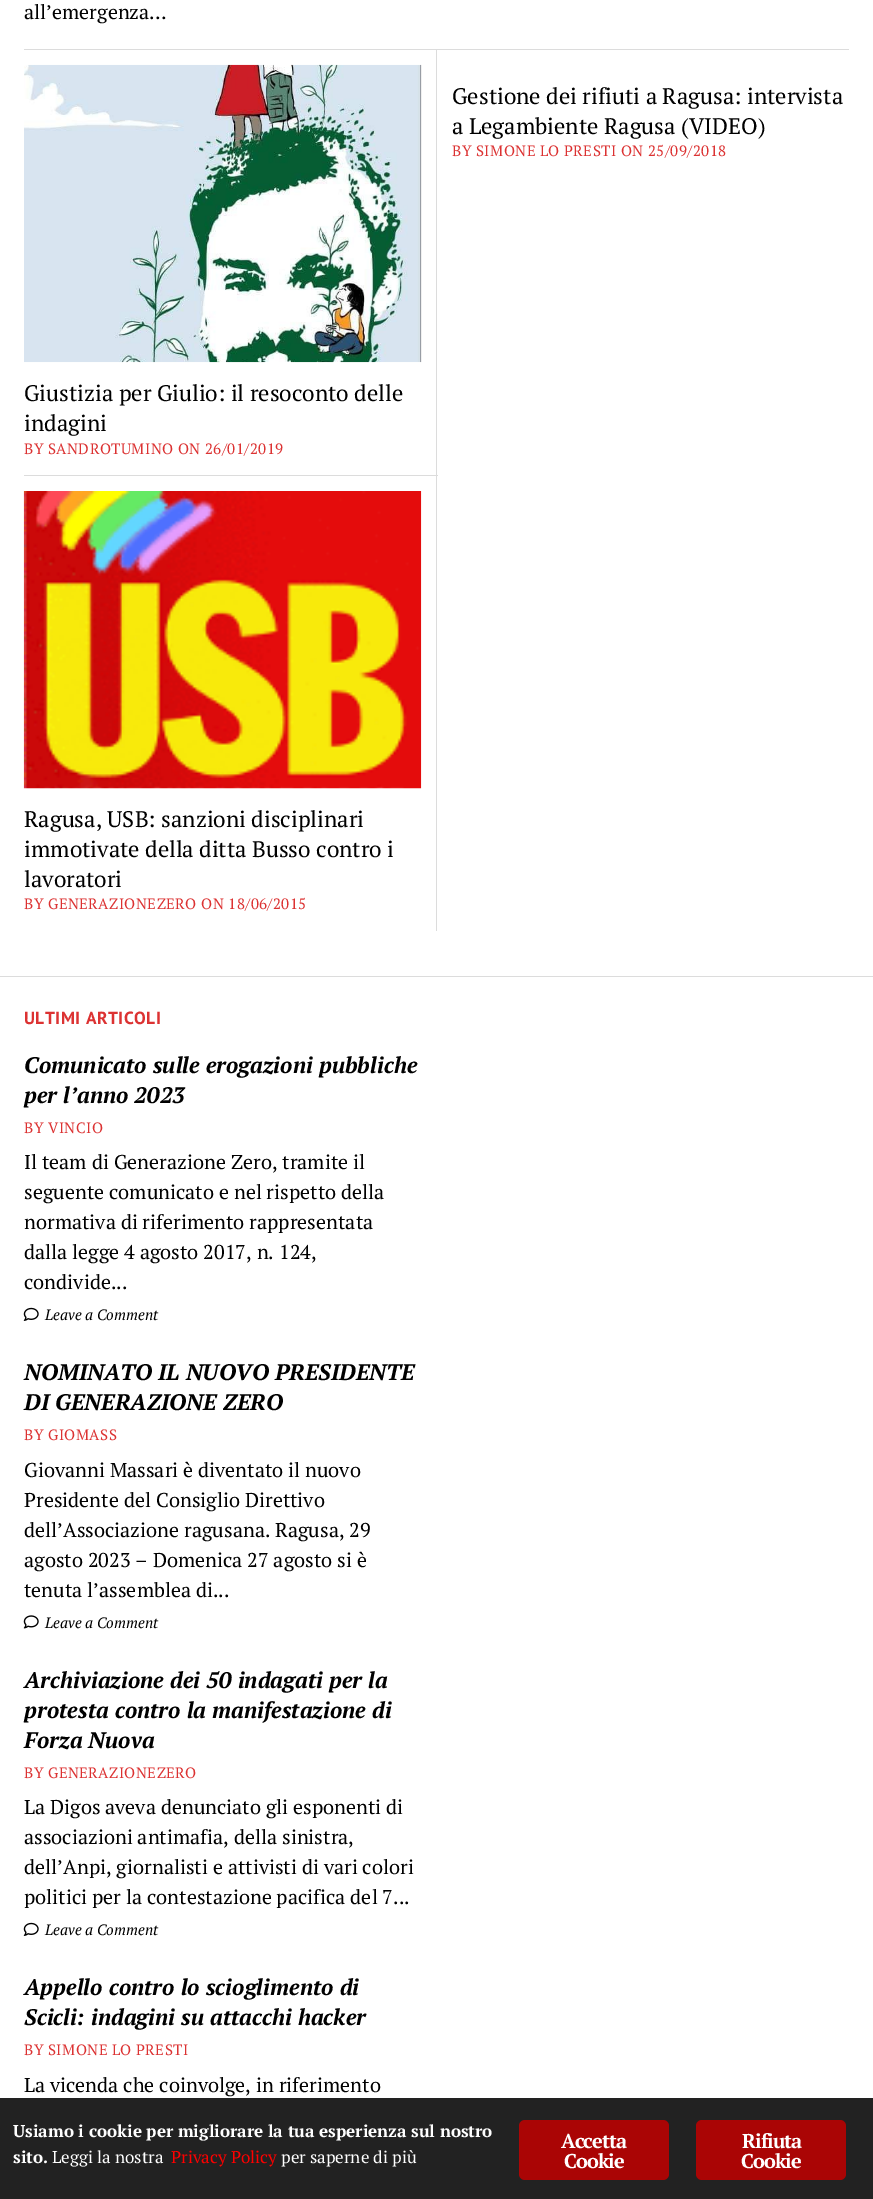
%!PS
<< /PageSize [873 2199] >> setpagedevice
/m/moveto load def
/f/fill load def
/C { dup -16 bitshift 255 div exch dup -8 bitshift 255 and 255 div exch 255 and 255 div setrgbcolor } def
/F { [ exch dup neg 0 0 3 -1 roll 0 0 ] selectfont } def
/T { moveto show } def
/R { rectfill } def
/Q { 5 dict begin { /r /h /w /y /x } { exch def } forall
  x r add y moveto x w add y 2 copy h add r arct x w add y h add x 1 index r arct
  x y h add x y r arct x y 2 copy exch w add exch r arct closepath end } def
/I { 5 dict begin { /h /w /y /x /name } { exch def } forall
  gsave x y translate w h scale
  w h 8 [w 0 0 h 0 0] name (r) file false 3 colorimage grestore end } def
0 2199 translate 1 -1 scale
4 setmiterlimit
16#FFFFFF C
0 0 873 2199 R
/PTSerif-Regular 20 F
16#000000 C
(all’emergenza…) 24 19 T
16#DCDCDC C
24 49 414 1 R
436 49 1 426 R
436 49 413 1 R
/PTSerif-Regular 22.5 F
16#000000 C
(Gestione dei rifiuti a Ragusa: intervista) 452 104 T
(a Legambiente Ragusa \(VIDEO\)) 452 134 T
/PTSerif-Regular 15 F
16#DC3232 C
452 156 m .45 0 (BY SIMONE LO PRESTI ON 25/09/2018) ashow
(1.rgb) 24 64 398 299 I
/PTSerif-Regular 22.5 F
16#000000 C
(Giustizia per Giulio: il resoconto delle) 24 401 T
(indagini) 24 431 T
/PTSerif-Regular 15 F
16#DC3232 C
24 454 m .45 0 (BY SANDROTUMINO ON 26/01/2019) ashow
16#DCDCDC C
24 475 414 1 R
436 475 1 456 R
(2.rgb) 23 491 399 298 I
/PTSerif-Regular 22.5 F
16#000000 C
(Ragusa, USB: sanzioni disciplinari) 24 827 T
(immotivate della ditta Busso contro i) 24 857 T
(lavoratori) 24 887 T
/PTSerif-Regular 15 F
16#DC3232 C
24 909 m .45 0 (BY GENERAZIONEZERO ON 18/06/2015) ashow
16#DCDCDC C
0 976 873 1 R
/PTSans-Bold 17.5 F
16#DC3232 C
24 1024 m .5 0 (ULTIMI ARTICOLI) ashow
/PTSerif-BoldItalic 22.5 F
16#000000 C
(Comunicato sulle erogazioni pubbliche) 24 1073 T
(per l’anno 2023) 24 1103 T
/PTSerif-Regular 15 F
16#DC3232 C
24 1133 m .45 0 (BY VINCIO) ashow
/PTSerif-Regular 20 F
16#000000 C
(Il team di Generazione Zero, tramite il) 24 1169 T
(seguente comunicato e nel rispetto della) 24 1199 T
(normativa di riferimento rappresentata) 24 1229 T
(dalla legge 4 agosto 2017, n. 124,) 24 1259 T
(condivide...) 24 1289 T
(3.rgb) 23 1307 16 14 I
/PTSerif-Italic 15 F
(Leave a Comment) 45 1320 T
/PTSerif-BoldItalic 22.5 F
(NOMINATO IL NUOVO PRESIDENTE) 24 1380 T
(DI GENERAZIONE ZERO) 24 1410 T
/PTSerif-Regular 15 F
16#DC3232 C
24 1440 m .45 0 (BY GIOMASS) ashow
/PTSerif-Regular 20 F
16#000000 C
(Giovanni Massari è diventato il nuovo) 24 1477 T
(Presidente del Consiglio Direttivo) 24 1507 T
(dell’Associazione ragusana. Ragusa, 29) 24 1537 T
(agosto 2023 – Domenica 27 agosto si è) 24 1567 T
(tenuta l’assemblea di...) 24 1597 T
(4.rgb) 23 1615 16 14 I
/PTSerif-Italic 15 F
(Leave a Comment) 45 1628 T
/PTSerif-BoldItalic 22.5 F
(Archiviazione dei 50 indagati per la) 24 1688 T
(protesta contro la manifestazione di) 24 1718 T
(Forza Nuova) 24 1748 T
/PTSerif-Regular 15 F
16#DC3232 C
24 1778 m .45 0 (BY GENERAZIONEZERO) ashow
/PTSerif-Regular 20 F
16#000000 C
(La Digos aveva denunciato gli esponenti di) 24 1814 T
(associazioni antimafia, della sinistra,) 24 1844 T
(dell’Anpi, giornalisti e attivisti di vari colori) 24 1874 T
(politici per la contestazione pacifica del 7...) 24 1904 T
(3.rgb) 23 1922 16 14 I
/PTSerif-Italic 15 F
(Leave a Comment) 45 1935 T
/PTSerif-BoldItalic 22.5 F
(Appello contro lo scioglimento di) 24 1995 T
(Scicli: indagini su attacchi hacker) 24 2025 T
/PTSerif-Regular 15 F
16#DC3232 C
24 2055 m .45 0 (BY SIMONE LO PRESTI) ashow
/PTSerif-Regular 20 F
16#000000 C
(La vicenda che coinvolge, in riferimento) 24 2092 T
16#222222 C
0 2098 873 101 R
/PTSerif-Bold 17 F
16#FFFFFF C
(Usiamo i cookie per migliorare la tua esperienza sul nostro) 13 2137 T
(sito.) 13 2163 T
/PTSerif-Regular 17 F
(Leggi la nostra) 52 2163 T
16#FF0000 C
(Privacy Policy) 171 2163 T
16#FFFFFF C
(per saperne di più) 281 2163 T
16#AA0505 C
519 2120 150 60 6 Q f
/PTSerif-Bold 20 F
16#FFFFFF C
561 2148 m -1 0 (Accetta) ashow
564 2168 m -1 0 (Cookie) ashow
16#AA0505 C
696 2120 150 60 6 Q f
16#FFFFFF C
742 2148 m -1 0 (Rifiuta) ashow
741 2168 m -1 0 (Cookie) ashow
showpage
